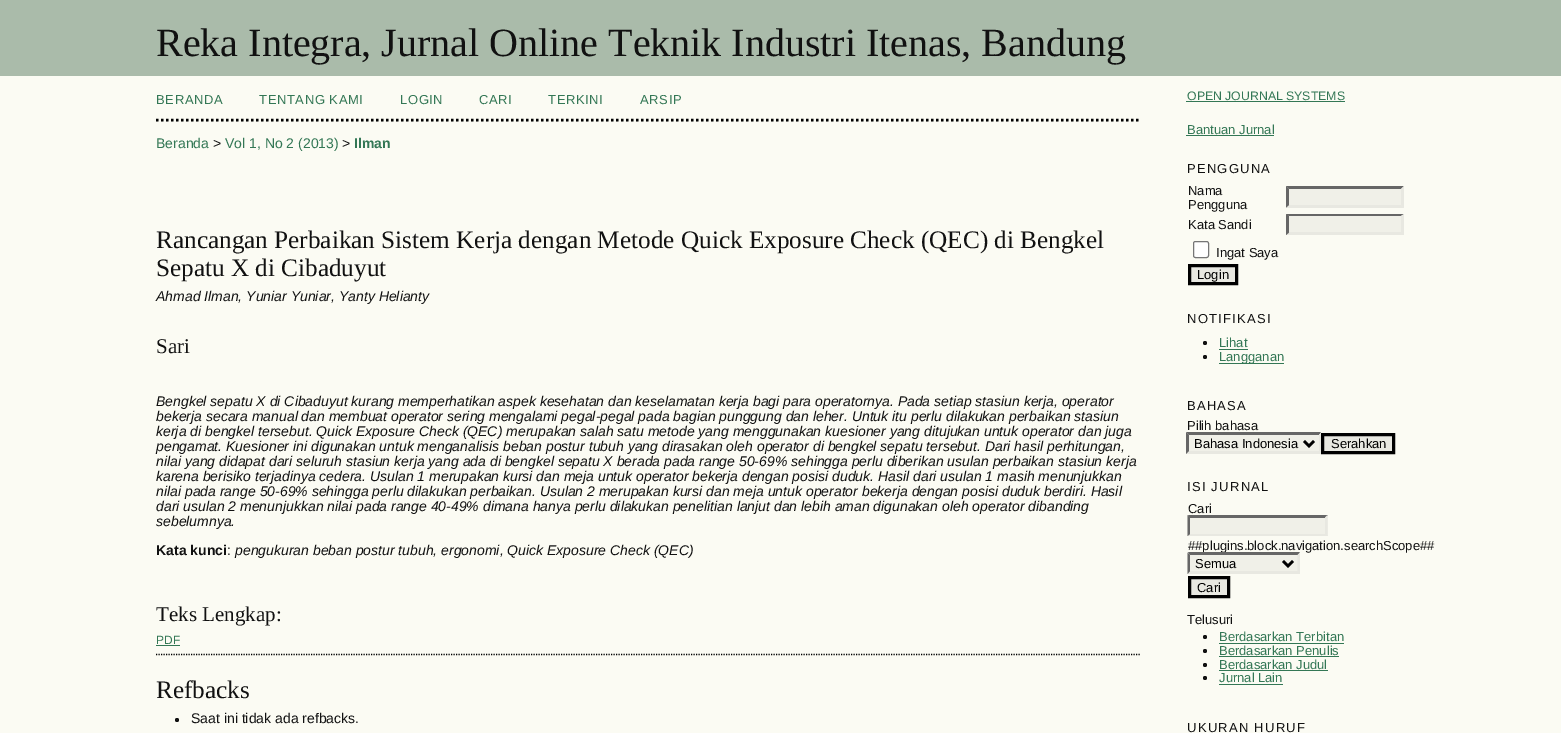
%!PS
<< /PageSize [1561 733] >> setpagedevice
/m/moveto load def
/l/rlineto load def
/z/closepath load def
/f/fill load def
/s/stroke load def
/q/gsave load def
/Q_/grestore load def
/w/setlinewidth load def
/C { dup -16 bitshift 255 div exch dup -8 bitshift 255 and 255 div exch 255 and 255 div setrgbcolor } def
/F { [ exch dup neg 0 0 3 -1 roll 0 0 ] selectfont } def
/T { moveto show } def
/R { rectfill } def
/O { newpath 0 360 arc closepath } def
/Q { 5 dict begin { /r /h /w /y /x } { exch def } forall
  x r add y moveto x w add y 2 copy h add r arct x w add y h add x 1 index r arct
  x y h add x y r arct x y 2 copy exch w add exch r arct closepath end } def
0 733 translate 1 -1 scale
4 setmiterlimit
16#FBFBF3 C
0 0 1561 733 R
16#AABBAA C
0 0 1561 76 R
/LiberationSerif-Regular 40 F
16#111111 C
(Reka Integra, Jurnal Online Teknik Industri Itenas, Bandung) 156 56 T
16#000000 C
2.5 w
[2.5 2.5] 0 setdash
156 120 m 984 0 l s
/LiberationSans-Regular 13 F
16#337755 C
156 104 m .6 0 (BERANDA) ashow
259 104 m .6 0 (TENTANG KAMI) ashow
400 104 m .6 0 (LOGIN) ashow
479 104 m .6 0 (CARI) ashow
548 104 m .6 0 (TERKINI) ashow
640 104 m .6 0 (ARSIP) ashow
/LiberationSans-Regular 14 F
(Beranda) 156 148 T
16#111111 C
(>) 213 148 T
16#337755 C
(Vol 1, No 2 \(2013\)) 225 148 T
16#111111 C
(>) 342 148 T
/LiberationSans-Bold 14 F
16#337755 C
(Ilman) 354 148 T
/LiberationSerif-Regular 25.2 F
16#111111 C
(Rancangan Perbaikan Sistem Kerja dengan Metode Quick Exposure Check \(QEC\) di Bengkel) 156 248 T
(Sepatu X di Cibaduyut) 156 276 T
/LiberationSans-Italic 14 F
(Ahmad Ilman, Yuniar Yuniar, Yanty Helianty) 156 301 T
/LiberationSerif-Regular 21 F
(Sari) 156 353 T
/LiberationSans-Italic 14 F
(Bengkel sepatu X di Cibaduyut kurang memperhatikan aspek kesehatan dan keselamatan kerja bagi para operatornya. Pada setiap stasiun kerja, operator) 156 406 T
(bekerja secara manual dan membuat operator sering mengalami pegal-pegal pada bagian punggung dan leher. Untuk itu perlu dilakukan perbaikan stasiun) 156 421 T
(kerja di bengkel tersebut. Quick Exposure Check \(QEC\) merupakan salah satu metode yang menggunakan kuesioner yang ditujukan untuk operator dan juga) 156 436 T
(pengamat. Kuesioner ini digunakan untuk menganalisis beban postur tubuh yang dirasakan oleh operator di bengkel sepatu tersebut. Dari hasil perhitungan,) 156 451 T
(nilai yang didapat dari seluruh stasiun kerja yang ada di bengkel sepatu X berada pada range 50-69% sehingga perlu diberikan usulan perbaikan stasiun kerja) 156 466 T
(karena berisiko terjadinya cedera. Usulan 1 merupakan kursi dan meja untuk operator bekerja dengan posisi duduk. Hasil dari usulan 1 masih menunjukkan) 156 481 T
(nilai pada range 50-69% sehingga perlu dilakukan perbaikan. Usulan 2 merupakan kursi dan meja untuk operator bekerja dengan posisi duduk berdiri. Hasil) 156 496 T
(dari usulan 2 menunjukkan nilai pada range 40-49% dimana hanya perlu dilakukan penelitian lanjut dan lebih aman digunakan oleh operator dibanding) 156 511 T
(sebelumnya.) 156 526 T
/LiberationSans-Bold 14 F
(Kata kunci) 156 555 T
/LiberationSans-Regular 14 F
(:) 227 555 T
/LiberationSans-Italic 14 F
(pengukuran beban postur tubuh, ergonomi, Quick Exposure Check \(QEC\)) 235 555 T
/LiberationSerif-Regular 21 F
(Teks Lengkap:) 156 621 T
/LiberationSans-Regular 12 F
16#337755 C
(PDF) 156 644 T
156 645 24 1 R
16#000000 C
1.2 w
[1.25 1.25] 0 setdash
156 654.5 m 984 0 l s
/LiberationSerif-Regular 25.2 F
16#111111 C
(Refbacks) 156 698 T
177 720 2 O f
/LiberationSans-Regular 14 F
(Saat ini tidak ada refbacks.) 191 723 T
/LiberationSans-Regular 12.3 F
16#337755 C
(OPEN JOURNAL SYSTEMS) 1187 100 T
1186 101 159 1 R
/LiberationSans-Regular 13 F
(Bantuan Jurnal) 1187 134 T
1186 135 88 1 R
16#111111 C
1187 173 m 1.25 0 (PENGGUNA) ashow
(Nama) 1188 195 T
(Pengguna) 1188 209 T
16#F0F0E8 C
1286 186 118 22 R
16#666666 C
1286 186 m 118 0 l -3 3 l -112 0 l z f
16#E8E8E1 C
1404 186 m 0 21.5 l -3 -2.5 l 0 -16 l z f
1404 208 m -118 0 l 3 -3 l 112 0 l z f
16#666666 C
1286 207.5 m 0 -21.5 l 3 3 l 0 16 l z f
16#111111 C
(Kata Sandi) 1188 229 T
16#F0F0E8 C
1286 214 118 21 R
16#666666 C
1286 214 m 118 0 l -3 2 l -112 0 l z f
16#E8E8E1 C
1404 214 m 0 21 l -3 -2.5 l 0 -16.5 l z f
1404 235 m -118 0 l 3 -3 l 112 0 l z f
16#666666 C
1286 235 m 0 -21 l 3 2 l 0 16.5 l z f
16#FFFFFF C
1193.5 241.5 15 16 2 Q q f Q_
16#767676 C
1 w
[] 0 setdash
s
16#111111 C
(Ingat Saya) 1216 257 T
16#E8E8E1 C
1189.5 265.5 m 47 0 l 0 18 l -47 0 l z q f Q_
16#000000 C
3 w
s
(Login) 1197 279 T
16#111111 C
1187 323 m 1.25 0 (NOTIFIKASI) ashow
1205 343 2 O f
16#337755 C
(Lihat) 1219 347 T
1219 349 29 1 R
16#111111 C
1205 357 2 O f
16#337755 C
1219 363 65 1 R
(Langganan) 1219 361 T
16#111111 C
1187 410 m 1.25 0 (BAHASA) ashow
(Pilih bahasa) 1187 430 T
16#F0F0E8 C
1186 433 135 21 R
16#666666 C
1186 432 m 135 0 l -2 3 l -130 0 l z f
16#E8E8E1 C
1321 432.5 m 0 21.5 l -2 -3 l 0 -16 l z f
1321 454 m -135 0 l 3 -3 l 130 0 l z f
16#666666 C
1186 454 m 0 -21.5 l 3 2.5 l 0 16 l z f
16#000000 C
2.5 w
1304 441 m 5 5 l 5 -5 l s
(Bahasa Indonesia) 1194 448 T
16#E8E8E1 C
1322.5 434.5 m 71 0 l 0 18 l -71 0 l z q f Q_
16#000000 C
3 w
s
(Serahkan) 1331 448 T
16#111111 C
1187 491 m 1.25 0 (ISI JURNAL) ashow
(Cari) 1188 513 T
16#F0F0E8 C
1188 515 140 21 R
16#666666 C
1188 515 m 140 0 l -3 3 l -135 0 l z f
16#E8E8E1 C
1327.5 515 m 0 21 l -2.5 -2 l 0 -16.5 l z f
1328 536 m -140 0 l 2 -2 l 135 0 l z f
16#666666 C
1187.5 536 m 0 -21 l 2.5 2.5 l 0 16.5 l z f
16#111111 C
(##plugins.block.navigation.searchScope##) 1188 550 T
16#F0F0E8 C
1188 553 112 21 R
16#666666 C
1188 552 m 112 0 l -2 3 l -108 0 l z f
16#E8E8E1 C
1300 552.5 m 0 21.5 l -2.5 -3 l 0 -16 l z f
1300 574 m -112 0 l 2 -3 l 108 0 l z f
16#666666 C
1187.5 574 m 0 -21.5 l 2.5 2.5 l 0 16 l z f
16#000000 C
2.5 w
1283 561 m 5 5 l 5 -5 l s
(Semua) 1195 568 T
16#E8E8E1 C
1189.5 577.5 m 39 0 l 0 19 l -39 0 l z q f Q_
16#000000 C
3 w
s
(Cari) 1197 592 T
16#111111 C
(Telusuri) 1187 624 T
1205 637 2 O f
16#337755 C
(Berdasarkan Terbitan) 1219 641 T
1219 643 125 1 R
16#111111 C
1205 651 2 O f
16#337755 C
(Berdasarkan Penulis) 1219 655 T
1219 656 120 1 R
16#111111 C
1205 665 2 O f
16#337755 C
(Berdasarkan Judul) 1219 669 T
1219 670 109 1 R
16#111111 C
1205 678 2 O f
16#337755 C
(Jurnal Lain) 1219 682 T
1219 684 64 1 R
16#111111 C
1187 732 m 1.25 0 (UKURAN HURUF) ashow
showpage
